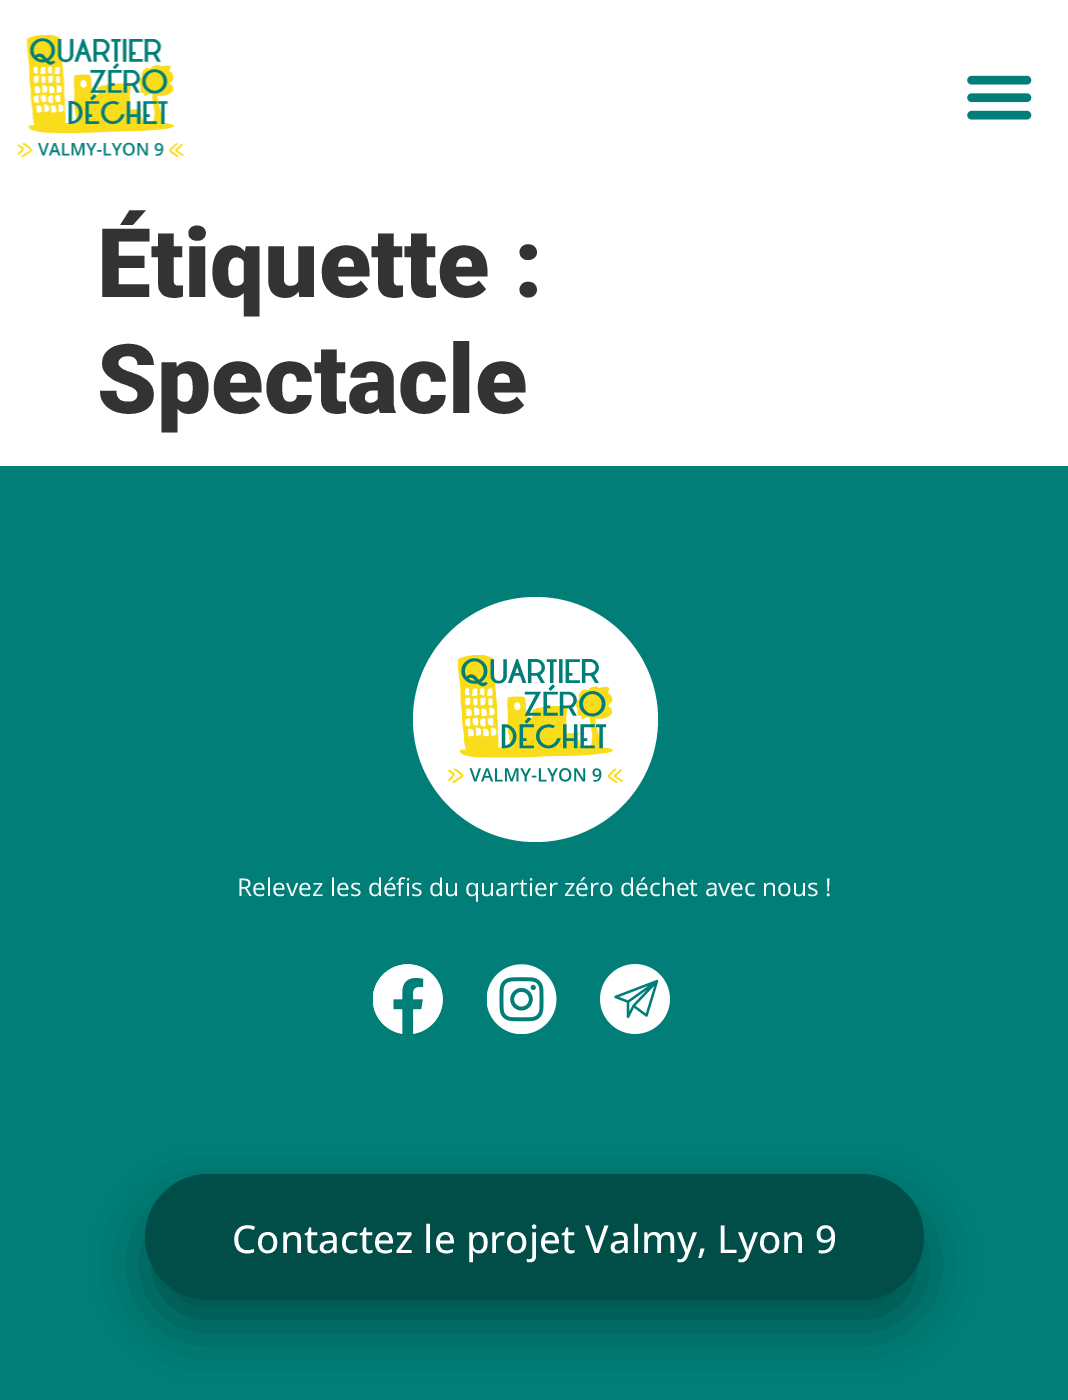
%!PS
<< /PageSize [1068 1400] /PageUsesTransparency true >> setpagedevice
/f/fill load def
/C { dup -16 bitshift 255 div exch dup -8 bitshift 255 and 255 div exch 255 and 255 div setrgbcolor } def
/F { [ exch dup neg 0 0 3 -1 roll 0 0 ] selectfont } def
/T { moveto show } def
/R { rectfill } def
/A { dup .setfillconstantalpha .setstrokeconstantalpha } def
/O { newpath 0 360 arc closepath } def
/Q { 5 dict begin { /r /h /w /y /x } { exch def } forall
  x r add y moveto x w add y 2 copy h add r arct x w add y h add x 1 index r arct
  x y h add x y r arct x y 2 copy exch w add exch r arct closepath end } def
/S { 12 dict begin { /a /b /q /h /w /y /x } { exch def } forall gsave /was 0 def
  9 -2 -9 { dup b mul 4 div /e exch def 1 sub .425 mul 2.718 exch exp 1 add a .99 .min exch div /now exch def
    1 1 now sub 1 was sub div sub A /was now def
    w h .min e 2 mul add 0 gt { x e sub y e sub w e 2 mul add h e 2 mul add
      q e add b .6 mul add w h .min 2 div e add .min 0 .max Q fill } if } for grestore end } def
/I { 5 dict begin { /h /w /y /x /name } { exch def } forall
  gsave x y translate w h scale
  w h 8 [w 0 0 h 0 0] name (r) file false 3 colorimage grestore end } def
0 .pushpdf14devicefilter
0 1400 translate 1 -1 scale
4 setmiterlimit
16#FFFFFF C
0 0 1068 1400 R
(1.rgb) 17 35 167 123 I
(2.rgb) 967 75 65 45 I
/Roboto-Black 96.25 F
16#333333 C
(Étiquette :) 97 297 T
(Spectacle) 97 413 T
16#007E77 C
0 466 1068 934 R
16#FFFFFF C
535.5 719.5 122.5 O f
(3.rgb) 448 655 175 129 I
/OpenSans-Regular 24.5 F
(Relevez les défis du quartier zéro déchet avec nous !) 237 896 T
(4.rgb) 373 964 70 70 I
(5.rgb) 487 964 70 70 I
(6.rgb) 600 964 70 70 I
16#000000 C
145 1201 779 126 63 26 .34 S
16#004E47 C
145 1174 779 126 63 Q f
/OpenSans-Medium 38.5 F
16#FFFFFF C
(Contactez le projet Valmy, Lyon 9) 232 1253 T
.poppdf14devicefilter showpage
